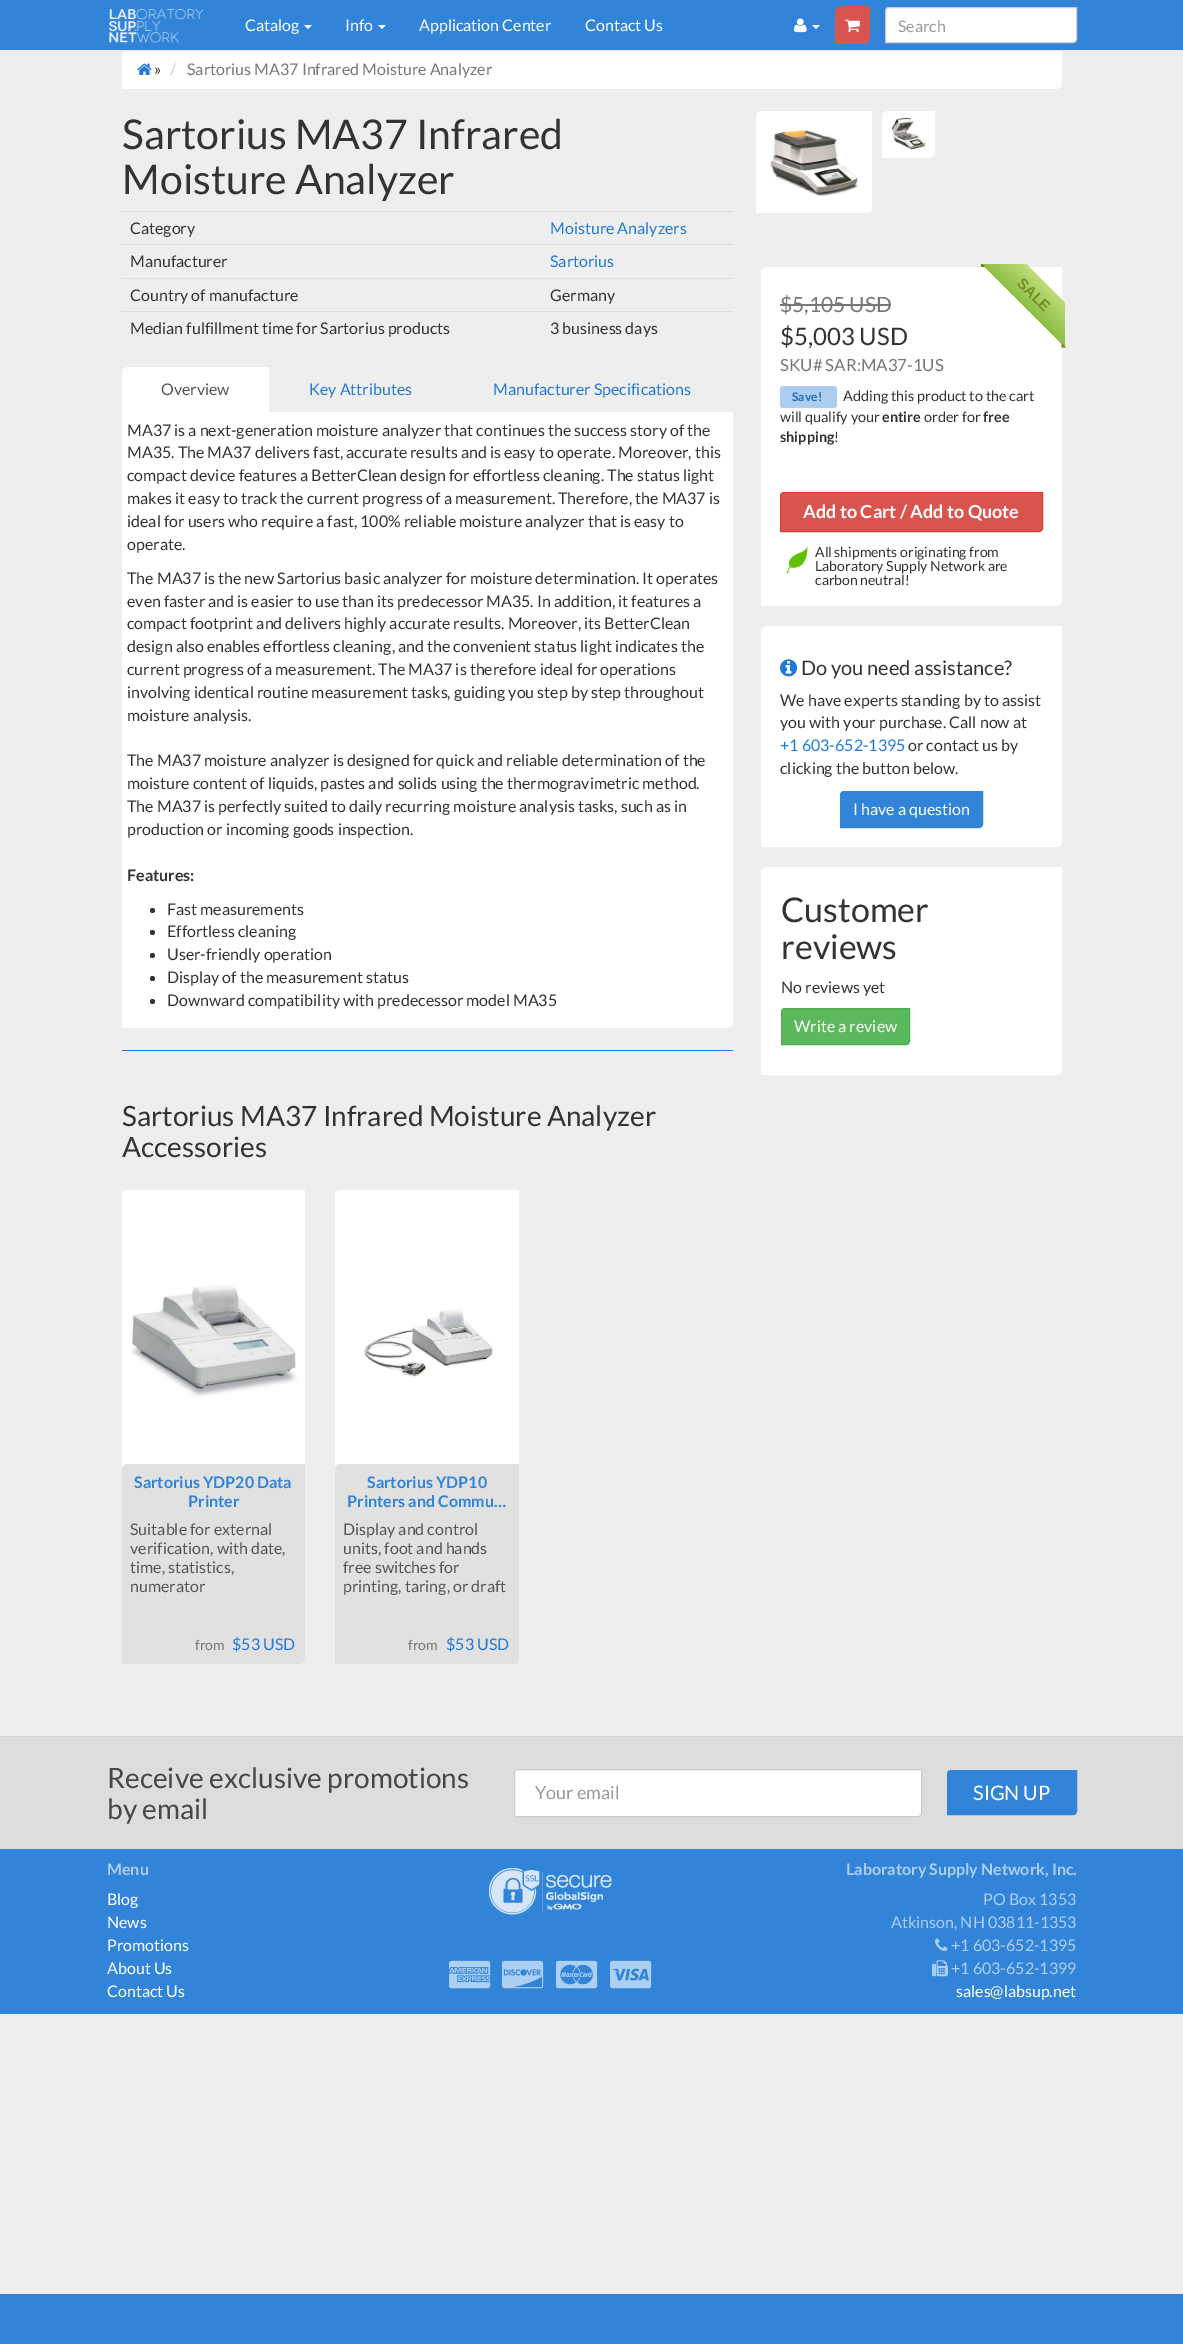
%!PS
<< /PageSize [1183 2344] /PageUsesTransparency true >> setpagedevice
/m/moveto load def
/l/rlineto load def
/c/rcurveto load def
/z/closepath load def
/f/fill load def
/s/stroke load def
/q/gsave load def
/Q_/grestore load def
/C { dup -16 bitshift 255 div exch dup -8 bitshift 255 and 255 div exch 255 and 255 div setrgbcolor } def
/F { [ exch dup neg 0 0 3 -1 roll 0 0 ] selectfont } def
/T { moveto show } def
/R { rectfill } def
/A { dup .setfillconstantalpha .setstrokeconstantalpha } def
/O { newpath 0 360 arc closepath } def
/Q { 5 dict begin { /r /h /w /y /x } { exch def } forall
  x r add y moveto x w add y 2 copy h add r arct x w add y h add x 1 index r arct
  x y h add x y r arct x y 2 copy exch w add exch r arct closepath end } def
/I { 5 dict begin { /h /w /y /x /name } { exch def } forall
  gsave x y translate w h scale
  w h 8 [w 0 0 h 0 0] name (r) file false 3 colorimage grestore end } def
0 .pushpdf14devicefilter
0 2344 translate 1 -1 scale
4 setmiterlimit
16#EEEEEE C
0 0 1183 2344 R
16#3284D9 C
0 0 1183 50 R
16#FFFFFF C
128 50 m 934 0 l 0 33 l 0 3.5 -2.5 6 -6 6 c -934 0 l 0 -33 l 0 -3.5 2.5 -6 6 -6 c z f
16#E7E7E7 C
0 50 1183 1 R
(1.rgb) 108 9 96 34 I
/Lato-Regular 16 F
16#FFFFFF C
(Catalog) 245 31 T
304 25 m 8 0 l -4 4 l z f
(Info) 345 31 T
378 25 m 8 0 l -4 4 l z f
(Application Center) 419 31 T
(Contact Us) 585 31 T
(2.rgb) 794 18 13 15 I
812 25 m 8 0 l -4 4 l z f
16#D9534F C
842 6 m 28 0 l 0 31 l 0 4 -3 7 -7 7 c -28 0 l 0 -31 l 0 -4 3 -7 7 -7 c z f
(3.rgb) 845 19 15 14 I
16#FFFFFF C
889 7.5 m 187.5 0 l 0 31.5 l 0 2 -1.5 3.5 -3.5 3.5 c -187.5 0 l 0 -31.5 l 0 -2 1.5 -3.5 3.5 -3.5 c z q f Q_
16#CCCCCC C
s
16#999999 C
(Search) 898 32 T
(4.rgb) 137 63 15 12 I
16#333333 C
(») 154 75 T
16#CCCCCC C
(/) 170 75 T
16#777777 C
(Sartorius MA37 Infrared Moisture Analyzer) 187 75 T
/Lato-Regular 41 F
16#333333 C
(Sartorius MA37 Infrared) 122 149 T
(Moisture Analyzer) 122 194 T
/Lato-Regular 16 F
(Category) 130 234 T
16#DDDDDD C
121 211 612 1 R
16#237AD4 C
(Moisture Analyzers) 550 234 T
16#333333 C
(Manufacturer) 130 267 T
16#DDDDDD C
121 244 612 1 R
16#237AD4 C
(Sartorius) 550 267 T
16#333333 C
(Country of manufacture) 130 301 T
16#DDDDDD C
121 278 612 1 R
16#333333 C
(Germany) 550 301 T
(Median fulfillment time for Sartorius products) 130 334 T
16#DDDDDD C
121 311 612 1 R
16#333333 C
(3 business days) 550 334 T
16#FFFFFF C
122 412 611 2 R
128 367 m 141 0 l 0 45 l -147 0 l 0 -39 l 0 -3.5 2.5 -6 6 -6 c z f
16#555555 C
(Overview) 161 395 T
16#237AD4 C
(Key Attributes) 309 395 T
(Manufacturer Specifications) 493 395 T
16#FFFFFF C
122 414 m 611 0 l 0 608 l 0 3.5 -2.5 6 -6 6 c -605 0 l z f
16#333333 C
(MA37 is a next-generation moisture analyzer that continues the success story of the) 127 436 T
(MA35. The MA37 delivers fast, accurate results and is easy to operate. Moreover, this) 127 458 T
(compact device features a BetterClean design for effortless cleaning. The status light) 127 481 T
(makes it easy to track the current progress of a measurement. Therefore, the MA37 is) 127 504 T
(ideal for users who require a fast, 100% reliable moisture analyzer that is easy to) 127 527 T
(operate.) 127 550 T
(The MA37 is the new Sartorius basic analyzer for moisture determination. It operates) 127 584 T
(even faster and is easier to use than its predecessor MA35. In addition, it features a) 127 607 T
(compact footprint and delivers highly accurate results. Moreover, its BetterClean) 127 629 T
(design also enables effortless cleaning, and the convenient status light indicates the) 127 652 T
(current progress of a measurement. The MA37 is therefore ideal for operations) 127 675 T
(involving identical routine measurement tasks, guiding you step by step throughout) 127 698 T
(moisture analysis.) 127 721 T
(The MA37 moisture analyzer is designed for quick and reliable determination of the) 127 766 T
(moisture content of liquids, pastes and solids using the thermogravimetric method.) 127 789 T
(The MA37 is perfectly suited to daily recurring moisture analysis tasks, such as in) 127 812 T
(production or incoming goods inspection.) 127 835 T
/Lato-Bold 16 F
(Features:) 127 881 T
152.5 910.5 2.5 O f
/Lato-Regular 16 F
(Fast measurements) 167 915 T
152.5 932.5 2.5 O f
(Effortless cleaning) 167 937 T
152.5 955.5 2.5 O f
(User-friendly operation) 167 960 T
152.5 978.5 2.5 O f
(Display of the measurement status) 167 983 T
152.5 1001.5 2.5 O f
(Downward compatibility with predecessor model MA35) 167 1006 T
16#FFFFFF C
762 111 m 110 0 l 0 96 l 0 3.5 -2.5 6 -6 6 c -110 0 l 0 -96 l 0 -3.5 2.5 -6 6 -6 c z f
(5.rgb) 770 128 89 69 I
888 111 m 47 0 l 0 41 l 0 3.5 -2.5 6 -6 6 c -47 0 l 0 -41 l 0 -3.5 2.5 -6 6 -6 c z f
(6.rgb) 891 117 35 33 I
767 267 m 295 0 l 0 333 l 0 3.5 -2.5 6 -6 6 c -295 0 l 0 -333 l 0 -3.5 2.5 -6 6 -6 c z f
q
980 264 85 88 rectclip
q 1003 241 m 85 85 l -22 22 l -85 -85 l z clip newpath
<< /ShadingType 2 /ColorSpace /DeviceRGB /Coords [1045 283 1024 305] /Extend [true true] /Function << /FunctionType 2 /Domain [0 1] /C0 [.749 .863 .478] /C1 [.557 .749 .271] /N 1 >> >> shfill Q_
16#6E8900 C
981 262.5 m 4.5 4.5 l -4.5 0 l z f
Q_
/LiberationSans-Bold 15 F
16#6F9023 C
q 1016 284 translate 45 rotate 0 0 m (SALE) show Q_
16#6E8900 C
1061.5 343.5 m 4.5 4 l -4.5 0 l z f
/Lato-Regular 21 F
16#777777 C
($5,105 USD) 780 312 T
780 304 111 2 R
/Lato-Regular 24 F
16#333333 C
($5,003 USD) 780 345 T
/Lato-Regular 16.75 F
16#777777 C
(SKU# SAR:MA37-1US) 780 371 T
16#ADCEF0 C
780 386 57 22 3 Q f
/Lato-Bold 12 F
16#226BB6 C
(Save!) 792 401 T
/Lato-Regular 14.4 F
16#333333 C
(Adding this product to the cart) 843 401 T
(will qualify your) 780 422 T
/Lato-Bold 14.4 F
(entire) 882 422 T
/Lato-Regular 14.4 F
(order for) 924 422 T
/Lato-Bold 14.4 F
(free) 983 422 T
(shipping) 780 442 T
/Lato-Regular 14.4 F
(!) 834 442 T
16#D9534F C
784 492.5 m 258.5 0 l 0 35.5 l 0 2 -1.5 3.5 -3.5 3.5 c -258.5 0 l 0 -35.5 l 0 -2 1.5 -3.5 3.5 -3.5 c z q f Q_
16#D43F3A C
s
/Lato-Bold 18 F
16#FFFFFF C
(Add to Cart / Add to Quote) 803 518 T
(7.rgb) 786 545 22 29 I
/Lato-Regular 14 F
16#333333 C
(All shipments originating from) 815 557 T
(Laboratory Supply Network are) 815 571 T
(carbon neutral!) 815 585 T
16#FFFFFF C
767 626 m 295 0 l 0 215 l 0 3.5 -2.5 6 -6 6 c -295 0 l 0 -215 l 0 -3.5 2.5 -6 6 -6 c z f
(8.rgb) 780 659 18 18 I
/Lato-Regular 20 F
16#333333 C
(Do you need assistance?) 801 675 T
/Lato-Regular 16 F
(We have experts standing by to assist) 780 706 T
(you with your purchase. Call now at) 780 728 T
16#237AD4 C
(+1 603-652-1395) 780 751 T
16#333333 C
(or contact us by) 908 751 T
(clicking the button below.) 780 774 T
16#3284D9 C
844 791.5 m 138.5 0 l 0 32.5 l 0 2 -1.5 3.5 -3.5 3.5 c -138.5 0 l 0 -32.5 l 0 -2 1.5 -3.5 3.5 -3.5 c z q f Q_
s
16#FFFFFF C
(I have a question) 853 815 T
767 867 m 295 0 l 0 202 l 0 3.5 -2.5 6 -6 6 c -295 0 l 0 -202 l 0 -3.5 2.5 -6 6 -6 c z f
/Lato-Regular 34 F
16#333333 C
(Customer) 781 922 T
(reviews) 781 959 T
/Lato-Regular 16 F
(No reviews yet) 781 993 T
16#5CB85C C
785 1008.5 m 124.5 0 l 0 32.5 l 0 2 -1.5 3.5 -3.5 3.5 c -124.5 0 l 0 -32.5 l 0 -2 1.5 -3.5 3.5 -3.5 c z q f Q_
16#4CAE4C C
s
16#FFFFFF C
(Write a review) 794 1032 T
16#237AD4 C
122 1050 611 1 R
/Lato-Regular 28 F
16#333333 C
(Sartorius MA37 Infrared Moisture Analyzer) 122 1126 T
(Accessories) 122 1157 T
16#FFFFFF C
128 1190 m 177 0 l 0 468 l 0 3.5 -2.5 6 -6 6 c -177 0 l 0 -468 l 0 -3.5 2.5 -6 6 -6 c z f
(9.rgb) 131 1284 167 113 I
0.85 A
16#DCDCDC C
127 1464 m 178 0 l 0 194 l 0 3.5 -2.5 6 -6 6 c -177 0 l 0 -195 l 0 -3 2 -5 5 -5 c z f
/Lato-Bold 16 F
1 A
16#3284D9 C
(Sartorius YDP20 Data) 134 1488 T
(Printer) 188 1507 T
/Lato-Regular 16 F
16#555555 C
(Suitable for external) 130 1535 T
(verification, with date,) 130 1554 T
(time, statistics,) 130 1573 T
(numerator) 130 1592 T
/Lato-Regular 14 F
16#777777 C
(from) 195 1650 T
/Lato-Regular 16 F
16#237AD4 C
($53 USD) 232 1650 T
16#FFFFFF C
341 1190 m 178 0 l 0 468 l 0 3.5 -2.5 6 -6 6 c -178 0 l 0 -468 l 0 -3.5 2.5 -6 6 -6 c z f
(10.rgb) 364 1309 129 69 I
0.85 A
16#DCDCDC C
340 1464 m 179 0 l 0 194 l 0 3.5 -2.5 6 -6 6 c -178 0 l 0 -195 l 0 -3 2 -5 5 -5 c z f
/Lato-Bold 16 F
1 A
16#3284D9 C
(Sartorius YDP10) 367 1488 T
(Printers and Commu…) 347 1507 T
/Lato-Regular 16 F
16#555555 C
(Display and control) 343 1535 T
(units, foot and hands) 343 1554 T
(free switches for) 343 1573 T
(printing, taring, or draft) 343 1592 T
/Lato-Regular 14 F
16#777777 C
(from) 408 1650 T
/Lato-Regular 16 F
16#237AD4 C
($53 USD) 446 1650 T
16#3284D9 C
0 1849 1183 165 R
16#DDDDDD C
0 1737 1183 112 R
16#D3D3D3 C
0 1736 1183 1 R
/Lato-Regular 28 F
16#474747 C
(Receive exclusive promotions) 107 1788 T
(by email) 107 1819 T
16#FFFFFF C
518 1769.5 m 403.5 0 l 0 43.5 l 0 2 -1.5 3.5 -3.5 3.5 c -403.5 0 l 0 -43.5 l 0 -2 1.5 -3.5 3.5 -3.5 c z q f Q_
16#CCCCCC C
s
/Lato-Regular 18 F
16#999999 C
(Your email) 535 1799 T
16#3284D9 C
951 1770.5 m 125.5 0 l 0 40.5 l 0 2 -1.5 3.5 -3.5 3.5 c -125.5 0 l 0 -40.5 l 0 -2 1.5 -3.5 3.5 -3.5 c z q f Q_
s
/Lato-Regular 20 F
16#FFFFFF C
(SIGN UP) 973 1800 T
/Lato-Bold 16 F
16#ADCFF2 C
(Menu) 107 1875 T
/Lato-Regular 16 F
16#FFFFFF C
(Blog) 107 1905 T
(News) 107 1928 T
(Promotions) 107 1951 T
(About Us) 107 1974 T
(Contact Us) 107 1997 T
(11.rgb) 489 1868 123 47 I
(12.rgb) 449 1960 42 29 I
(13.rgb) 502 1960 42 29 I
(14.rgb) 556 1960 42 29 I
(15.rgb) 610 1960 42 29 I
/Lato-Bold 16 F
16#ADCFF2 C
(Laboratory Supply Network, Inc.) 846 1875 T
/Lato-Regular 16 F
(PO Box 1353) 983 1905 T
(Atkinson, NH 03811-1353) 891 1928 T
(16.rgb) 935 1938 13 13 I
(+1 603-652-1395) 951 1951 T
(17.rgb) 932 1960 16 17 I
(+1 603-652-1399) 951 1974 T
16#FFFFFF C
(sales@labsup.net) 956 1997 T
16#3284D9 C
0 2294 1183 50 R
.poppdf14devicefilter showpage
